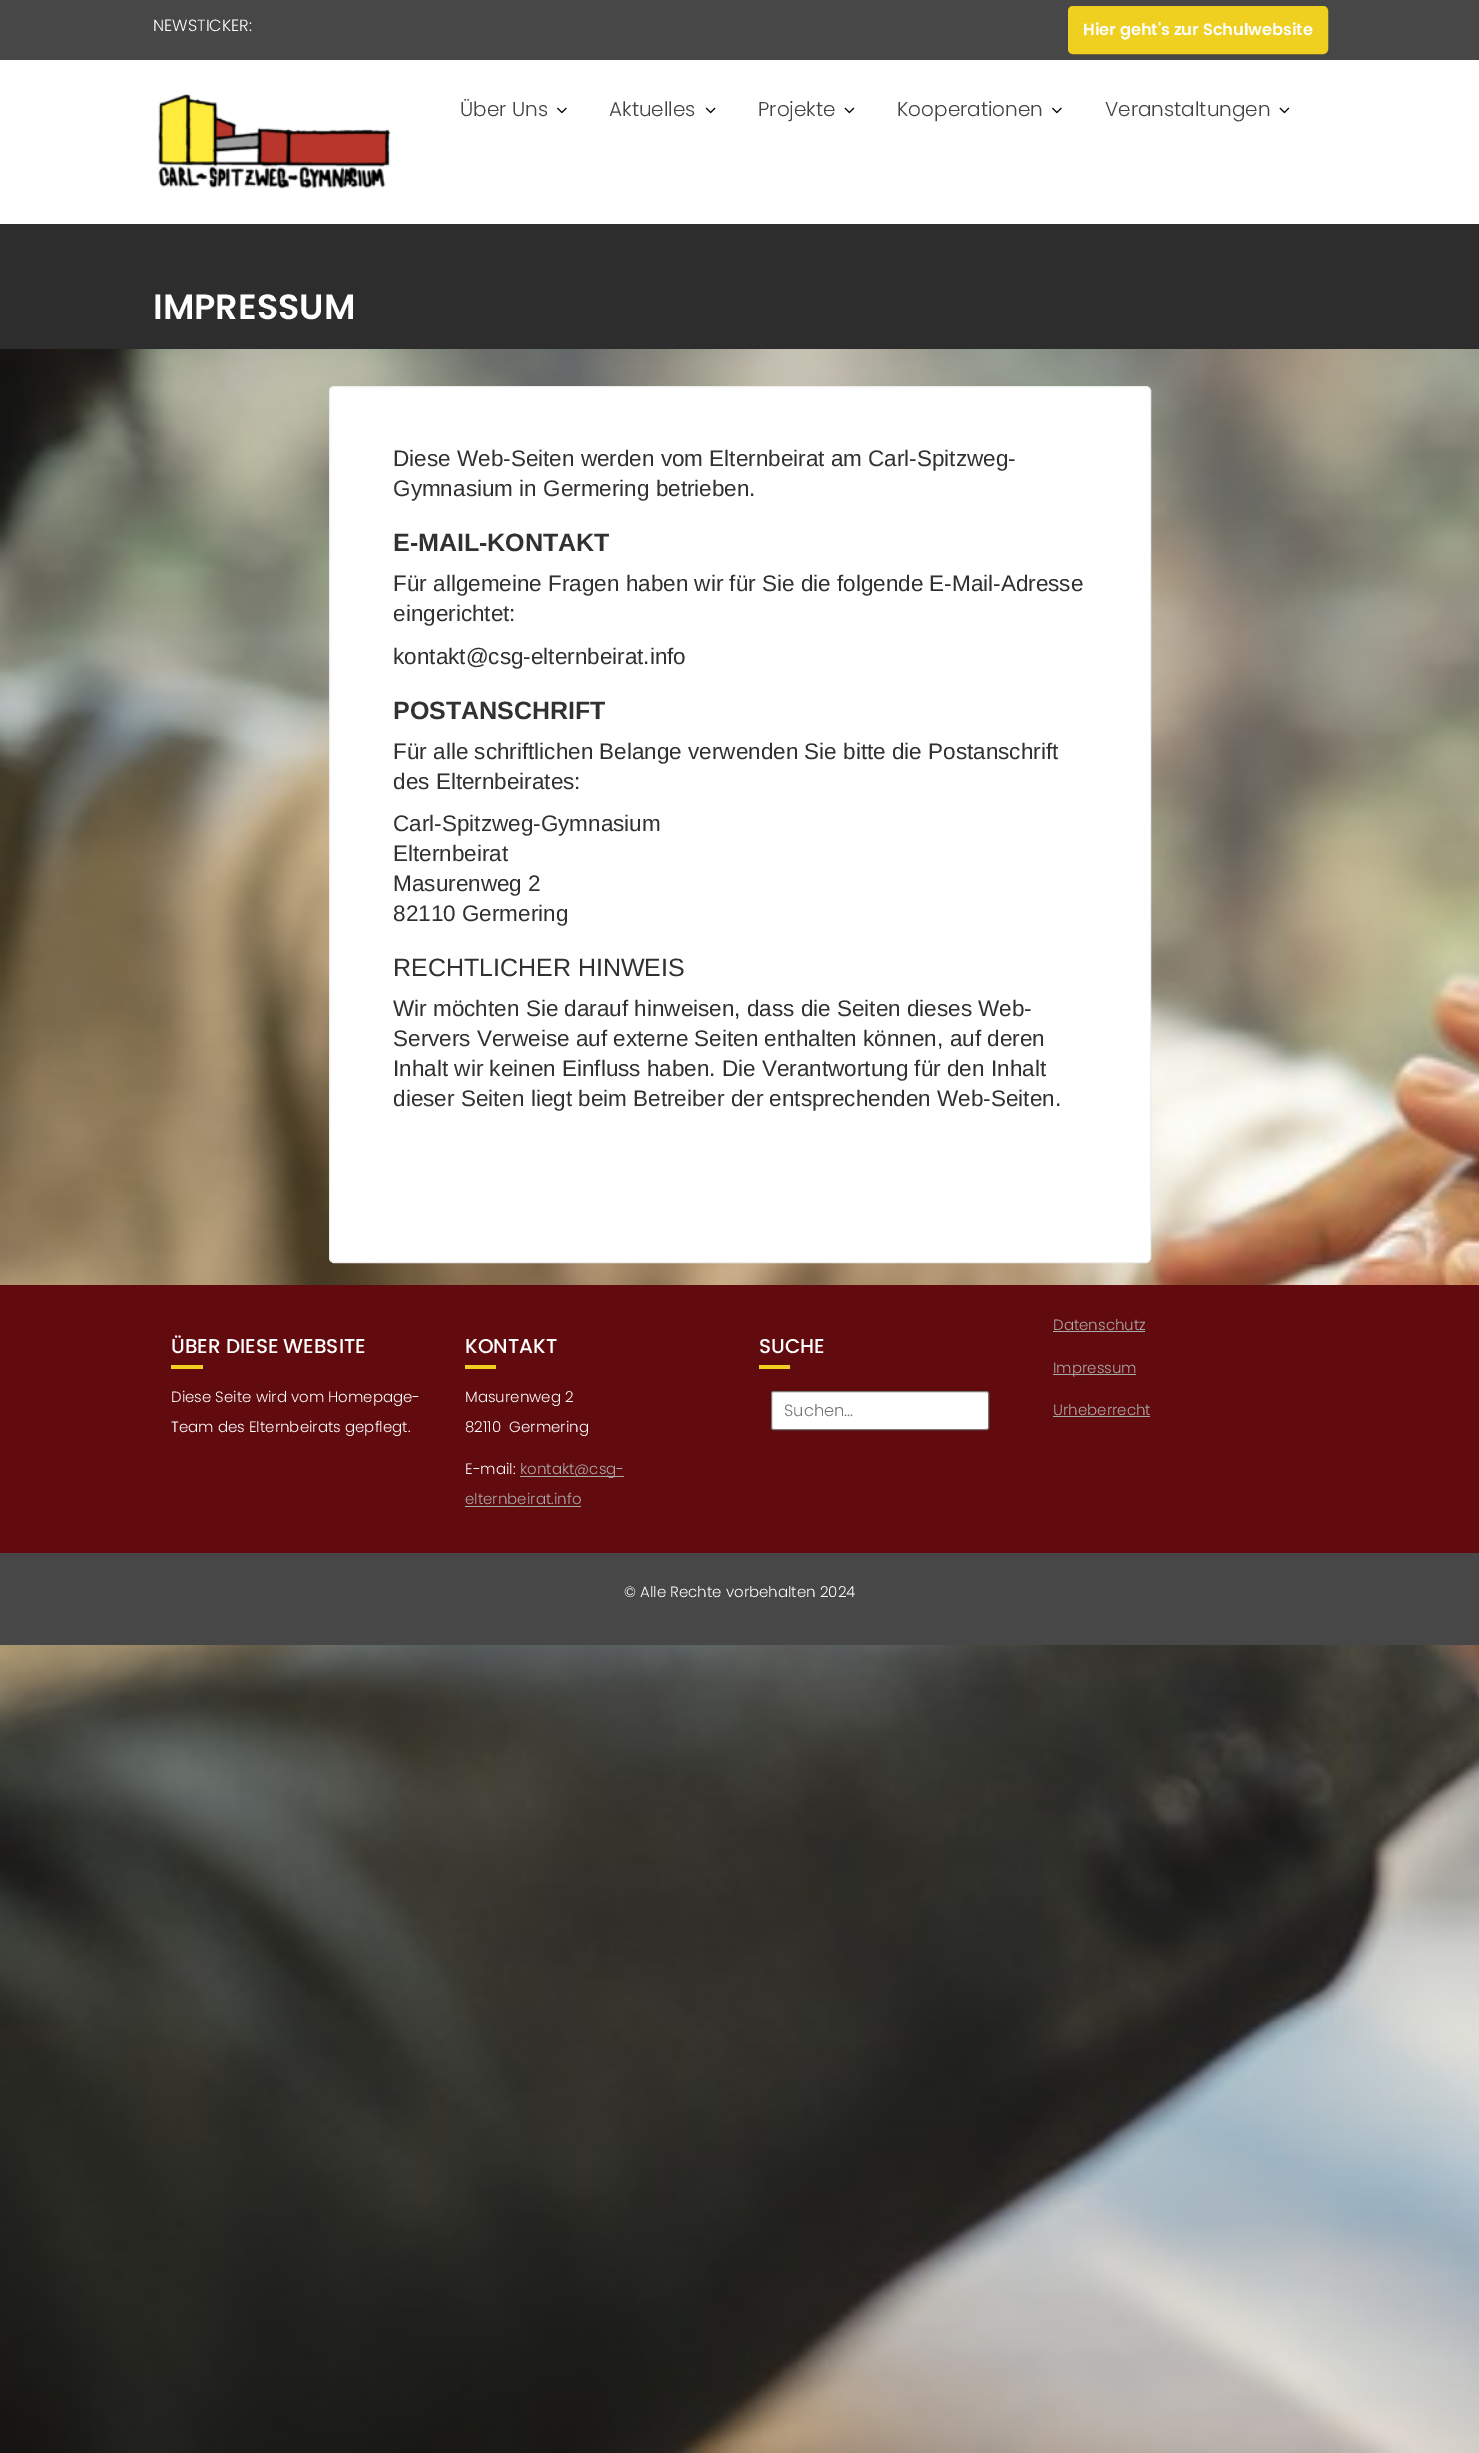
%!PS
<< /PageSize [1479 2453] >> setpagedevice
/f/fill load def
/s/stroke load def
/q/gsave load def
/Q_/grestore load def
/w/setlinewidth load def
/C { dup -16 bitshift 255 div exch dup -8 bitshift 255 and 255 div exch 255 and 255 div setrgbcolor } def
/F { [ exch dup neg 0 0 3 -1 roll 0 0 ] selectfont } def
/T { moveto show } def
/R { rectfill } def
/Q { 5 dict begin { /r /h /w /y /x } { exch def } forall
  x r add y moveto x w add y 2 copy h add r arct x w add y h add x 1 index r arct
  x y h add x y r arct x y 2 copy exch w add exch r arct closepath end } def
/I { 5 dict begin { /h /w /y /x /name } { exch def } forall
  gsave x y translate w h scale
  w h 8 [w 0 0 h 0 0] name (r) file false 3 colorimage grestore end } def
0 2453 translate 1 -1 scale
4 setmiterlimit
16#FFFFFF C
0 0 1479 2453 R
(1.rgb) 0 349 1479 2104 I
16#474747 C
0 0 1479 60 R
/Poppins-Light 16.25 F
16#FFFFFF C
(NEWSTICKER:) 153 31 T
16#EFD021 C
1069.5 7.5 257 45 3.5 Q q f Q_
3 w
s
/Poppins-SemiBold 16.25 F
16#FFFFFF C
(Hier geht's zur Schulwebsite) 1083 35 T
(2.rgb) 157 93 234 96 I
/Poppins-Light 20 F
16#444444 C
(Über Uns) 460 116 T
(3.rgb) 557 107 10 7 I
(Aktuelles) 609 116 T
(4.rgb) 705 107 11 7 I
(Projekte) 758 116 T
(5.rgb) 844 107 11 7 I
(Kooperationen) 897 116 T
(3.rgb) 1052 107 10 7 I
(Veranstaltungen) 1105 116 T
(5.rgb) 1279 107 11 7 I
16#2D2D2D C
0 224 1479 125 R
/Poppins-SemiBold 35 F
16#FFFFFF C
(IMPRESSUM) 153 319 T
329.5 386.5 821 876 4.5 Q q f Q_
16#EEEEEE C
1 w
s
/LiberationSans-Regular 22.5 F
16#313131 C
(Diese Web-Seiten werden vom Elternbeirat am Carl-Spitzweg-) 393 466 T
(Gymnasium in Germering betrieben.) 393 496 T
/LiberationSans-Bold 25 F
(E-MAIL-KONTAKT) 393 551 T
/LiberationSans-Regular 22.5 F
(Für allgemeine Fragen haben wir für Sie die folgende E-Mail-Adresse) 393 591 T
(eingerichtet:) 393 621 T
(kontakt@csg-elternbeirat.info) 393 664 T
/LiberationSans-Bold 25 F
(POSTANSCHRIFT) 393 719 T
/LiberationSans-Regular 22.5 F
(Für alle schriftlichen Belange verwenden Sie bitte die Postanschrift) 393 759 T
(des Elternbeirates:) 393 789 T
(Carl-Spitzweg-Gymnasium) 393 831 T
(Elternbeirat) 393 861 T
(Masurenweg 2) 393 891 T
(82110 Germering) 393 921 T
/LiberationSans-Regular 25 F
(RECHTLICHER HINWEIS) 393 976 T
/LiberationSans-Regular 22.5 F
(Wir möchten Sie darauf hinweisen, dass die Seiten dieses Web-) 393 1016 T
(Servers Verweise auf externe Seiten enthalten können, auf deren) 393 1046 T
(Inhalt wir keinen Einfluss haben. Die Verantwortung für den Inhalt) 393 1076 T
(dieser Seiten liegt beim Betreiber der entsprechenden Web-Seiten.) 393 1106 T
16#620B0F C
0 1285 1479 268 R
/Poppins-Medium 20 F
16#FFFFFF C
(ÜBER DIESE WEBSITE) 171 1353 T
16#EFD021 C
171 1365 32 4 R
/Poppins-Light 15 F
16#FFFFFF C
(Diese Seite wird vom Homepage-) 171 1402 T
(Team des Elternbeirats gepflegt.) 171 1432 T
/Poppins-Medium 20 F
(KONTAKT) 465 1353 T
16#EFD021 C
465 1365 31 4 R
/Poppins-Light 15 F
16#FFFFFF C
(Masurenweg 2) 465 1402 T
(82110  Germering) 465 1432 T
(E-mail:) 465 1474 T
16#AAAAAA C
520 1476 104 1 R
(kontakt@csg-) 520 1474 T
(elternbeirat.info) 465 1504 T
465 1506 116 1 R
/Poppins-Medium 20 F
16#FFFFFF C
(SUCHE) 759 1353 T
16#EFD021 C
759 1365 31 4 R
16#FFFFFF C
771.5 1391.5 217 38 2 Q q f Q_
16#767676 C
s
/Poppins-Light 16.25 F
16#757575 C
(Suchen...) 784 1416 T
/Poppins-Light 15 F
16#AAAAAA C
(Datenschutz) 1053 1330 T
1053 1331 92 1 R
1053 1374 83 1 R
(Impressum) 1053 1373 T
(Urheberrecht) 1053 1415 T
1053 1416 97 1 R
16#474747 C
0 1553 1479 92 R
16#FFFFFF C
(© Alle Rechte vorbehalten 2024) 624 1597 T
showpage
